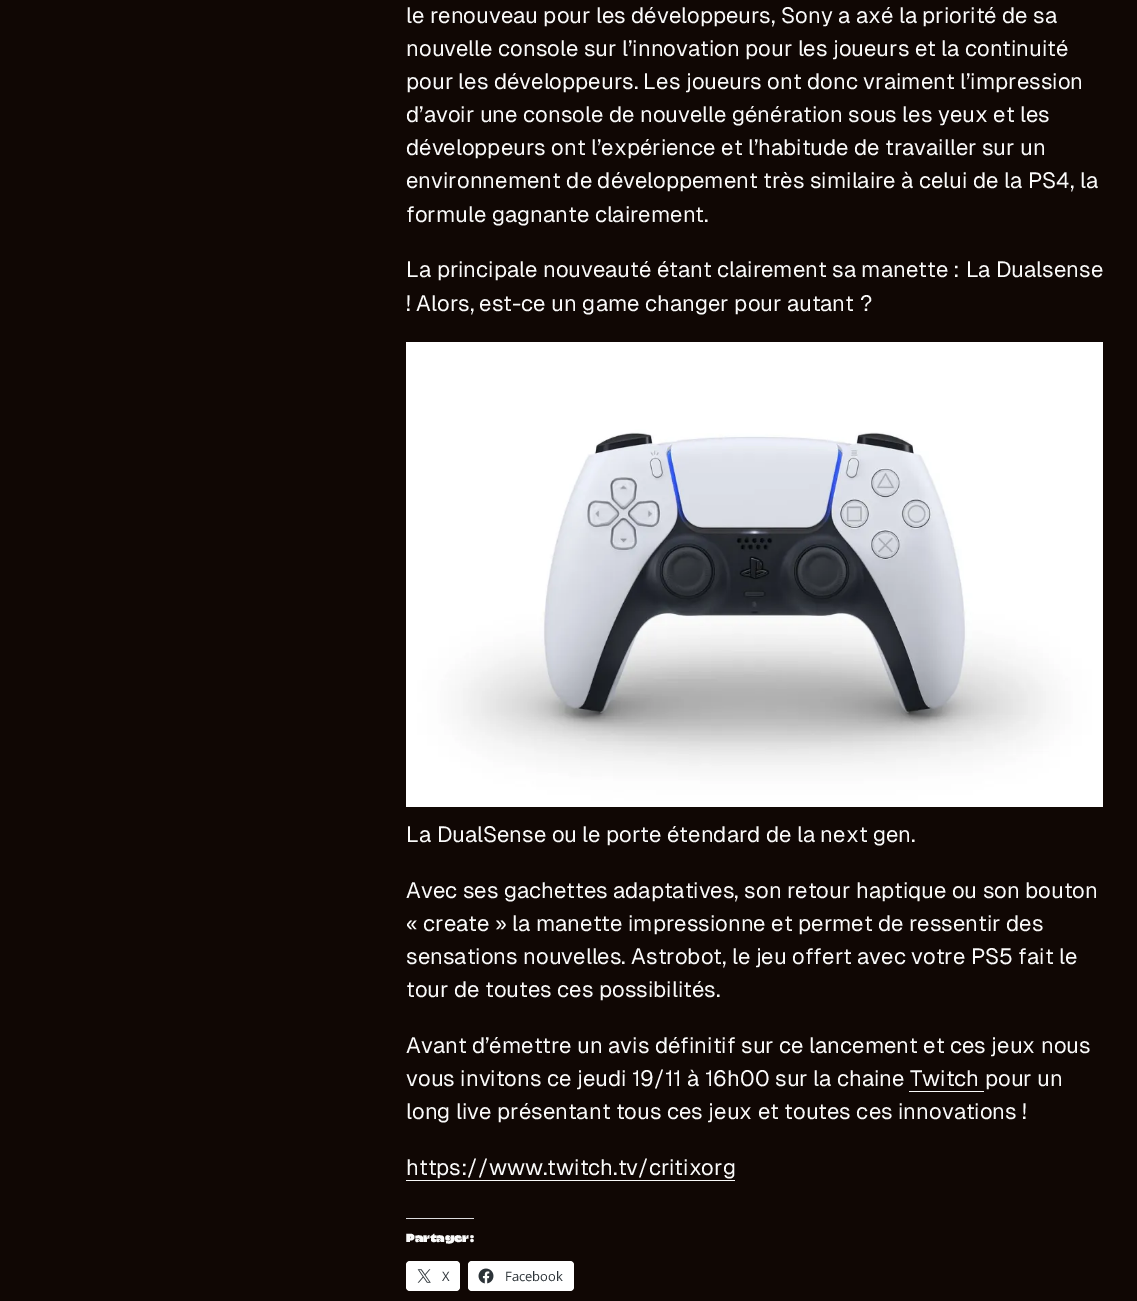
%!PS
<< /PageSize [1137 1301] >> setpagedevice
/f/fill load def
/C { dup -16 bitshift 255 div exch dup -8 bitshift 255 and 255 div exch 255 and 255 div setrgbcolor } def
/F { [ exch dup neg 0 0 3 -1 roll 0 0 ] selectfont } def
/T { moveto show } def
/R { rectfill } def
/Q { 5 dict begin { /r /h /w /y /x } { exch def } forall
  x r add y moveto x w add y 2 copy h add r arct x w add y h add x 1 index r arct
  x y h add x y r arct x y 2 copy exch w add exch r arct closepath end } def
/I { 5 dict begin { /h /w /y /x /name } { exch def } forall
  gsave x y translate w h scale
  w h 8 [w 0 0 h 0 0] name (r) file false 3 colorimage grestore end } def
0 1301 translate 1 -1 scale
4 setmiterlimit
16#100704 C
0 0 1137 1301 R
/Geist-Regular 22.1 F
16#FAFAFA C
(le renouveau pour les développeurs, Sony a axé la priorité de sa) 406 23 T
(nouvelle console sur l’innovation pour les joueurs et la continuité) 406 56 T
(pour les développeurs. Les joueurs ont donc vraiment l’impression) 406 89 T
(d’avoir une console de nouvelle génération sous les yeux et les) 406 122 T
(développeurs ont l’expérience et l’habitude de travailler sur un) 406 155 T
(environnement de développement très similaire à celui de la PS4, la) 406 188 T
(formule gagnante clairement.) 406 222 T
(La principale nouveauté étant clairement sa manette : La Dualsense) 406 277 T
(! Alors, est-ce un game changer pour autant ?) 406 311 T
(1.rgb) 406 342 697 465 I
(La DualSense ou le porte étendard de la next gen.) 406 842 T
(Avec ses gachettes adaptatives, son retour haptique ou son bouton) 406 898 T
(« create » la manette impressionne et permet de ressentir des) 406 931 T
(sensations nouvelles. Astrobot, le jeu offert avec votre PS5 fait le) 406 964 T
(tour de toutes ces possibilités.) 406 997 T
(Avant d’émettre un avis définitif sur ce lancement et ces jeux nous) 406 1053 T
(vous invitons ce jeudi 19/11 à 16h00 sur la chaine Twitch pour un) 406 1086 T
909 1091 75 1 R
(long live présentant tous ces jeux et toutes ces innovations !) 406 1119 T
(https://www.twitch.tv/critixorg) 406 1175 T
406 1180 329 1 R
16#DCDCDE C
406 1218 68 1 R
/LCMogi-Regular 12 F
16#FAFAFA C
(Partager :) 406 1242 T
16#FFFFFF C
406 1261 54 30 4 Q f
(2.rgb) 417 1269 14 14 I
/OpenSans-Regular 13 F
16#2C3338 C
(X) 442 1281 T
16#FFFFFF C
468 1261 106 30 4 Q f
(3.rgb) 478 1268 16 16 I
16#2C3338 C
(Facebook) 505 1281 T
showpage
